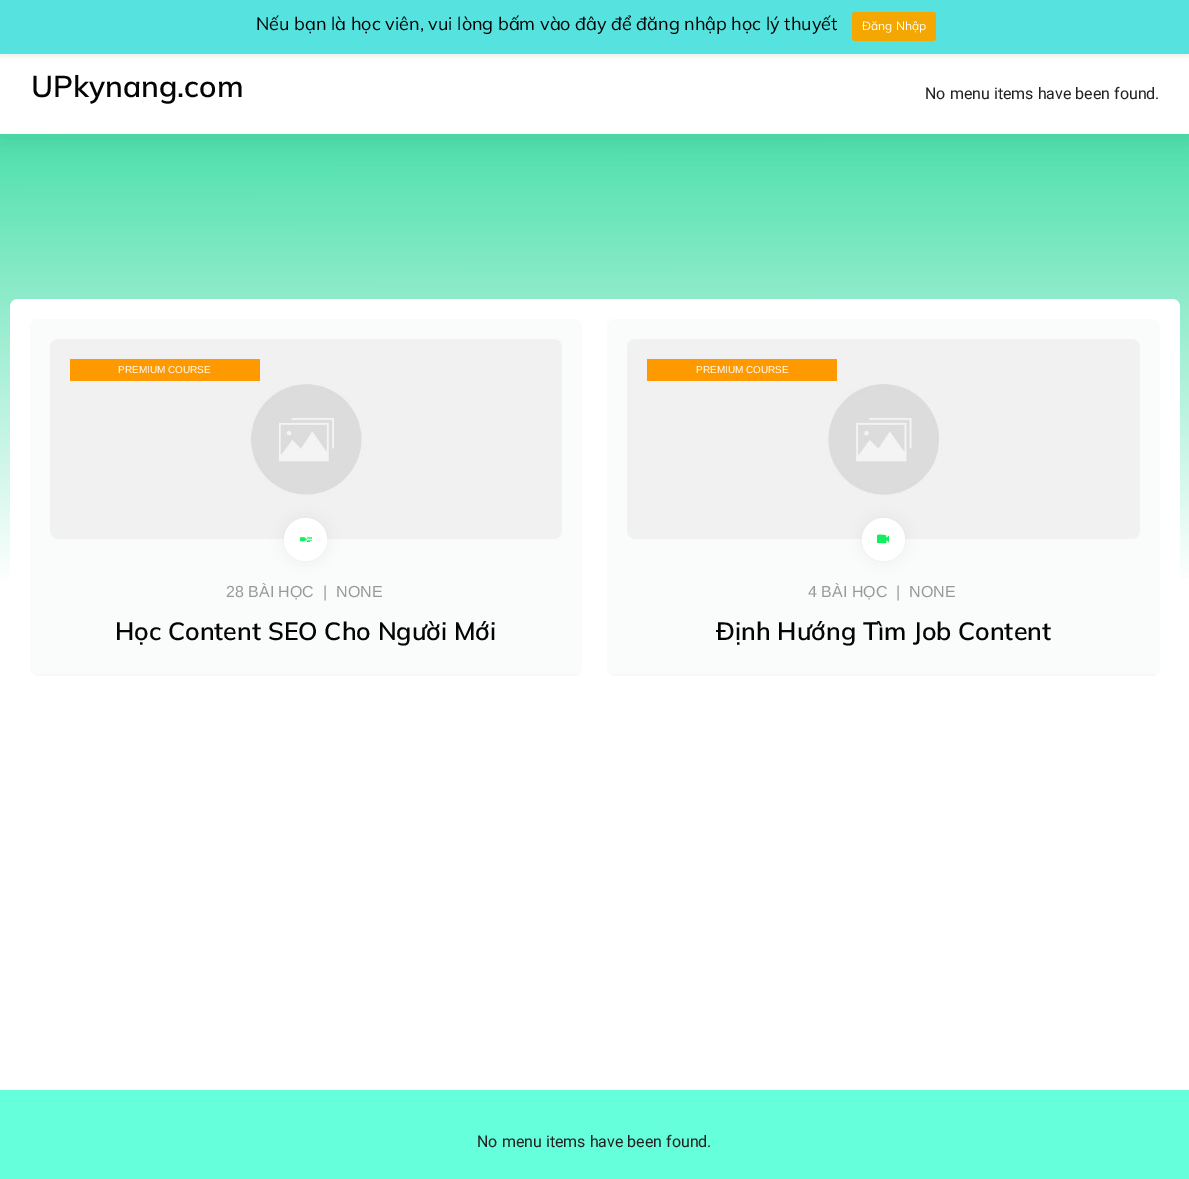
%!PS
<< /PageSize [1189 1179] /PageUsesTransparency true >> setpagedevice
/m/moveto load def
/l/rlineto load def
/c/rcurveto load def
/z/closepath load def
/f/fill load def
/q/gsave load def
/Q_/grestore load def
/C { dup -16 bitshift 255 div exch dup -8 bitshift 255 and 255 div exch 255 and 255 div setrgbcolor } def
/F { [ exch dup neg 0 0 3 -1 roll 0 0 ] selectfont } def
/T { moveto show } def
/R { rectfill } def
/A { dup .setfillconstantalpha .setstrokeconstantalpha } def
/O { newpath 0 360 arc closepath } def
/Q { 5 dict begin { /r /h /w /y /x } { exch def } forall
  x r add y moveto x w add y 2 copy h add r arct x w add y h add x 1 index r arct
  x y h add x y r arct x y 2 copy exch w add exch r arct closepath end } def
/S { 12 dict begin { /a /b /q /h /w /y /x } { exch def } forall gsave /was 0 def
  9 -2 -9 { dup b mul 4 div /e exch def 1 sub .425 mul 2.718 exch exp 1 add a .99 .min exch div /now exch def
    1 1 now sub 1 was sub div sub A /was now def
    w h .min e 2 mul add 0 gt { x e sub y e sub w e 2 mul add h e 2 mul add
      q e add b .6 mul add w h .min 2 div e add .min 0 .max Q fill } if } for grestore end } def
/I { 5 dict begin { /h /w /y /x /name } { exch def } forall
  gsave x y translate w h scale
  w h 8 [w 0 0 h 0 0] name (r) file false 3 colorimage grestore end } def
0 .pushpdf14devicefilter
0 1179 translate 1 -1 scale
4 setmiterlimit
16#FFFFFF C
0 0 1189 1179 R
q 0 134 m 1189 0 l 0 445 l -1189 0 l z clip newpath
<< /ShadingType 2 /ColorSpace /DeviceRGB /Coords [594 54 595 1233] /Extend [true true] /Function << /FunctionType 3 /Domain [0 1] /Functions [<< /FunctionType 2 /Domain [0 1] /C0 [.184 .855 .62] /C1 [1 1 1] /N 1 >> << /FunctionType 2 /Domain [0 1] /C0 [1 1 1] /C1 [1 1 1] /N 1 >>] /Bounds [.45] /Encode [0 1 0 1] >> >> shfill Q_
16#000000 C
0 56 1189 80 0 15 .08 S
16#FFFFFF C
0 54 1189 80 R
16#000000 C
0 3 1189 54 0 2 .05 S
16#56E2DE C
0 0 1189 54 R
/Mulish-Regular 18 F
16#040404 C
(Nếu bạn là học viên, vui lòng bấm vào đây để đăng nhập học lý thuyết) 256 30 T
16#F4A700 C
852 12 84 29 3 Q f
/Mulish-Regular 12 F
16#FFFFFF C
(Đăng Nhập) 862 30 T
/Mulish-SemiBold 30 F
16#040404 C
(UPkynang.com) 31 97 T
/Roboto-Regular 16 F
16#222222 C
(No menu items have been found.) 925 99 T
16#FFFFFF C
18 299 m 1154 0 l 4.5 0 8 3.5 8 8 c 0 783 l -1170 0 l 0 -783 l 0 -4.5 3.5 -8 8 -8 c z f
16#F5F9F8 C
30 319 552 357 8 Q f
q
30 319 552 357 8 Q clip newpath
0.5 A
16#FFFFFF C
38 319 m 536 0 l 4.5 0 8 3.5 8 8 c 0 347 l -552 0 l 0 -347 l 0 -4.5 3.5 -8 8 -8 c z f
Q_
(1.rgb) 50 339 512 200 I
16#FF9900 C
70 359 190 22 R
/LiberationSans-Regular 10 F
16#FFFFFF C
(PREMIUM COURSE) 118 373 T
16#000000 C
284 518 43 43 21.5 8 .06 S
16#FFFFFF C
305.5 539.5 21.5 O f
(2.rgb) 300 536 12 7 I
/LiberationSans-Regular 16 F
16#999999 C
(28 BÀI HỌC  |) 226 597 T
(NONE) 336 597 T
/Mulish-SemiBold 25 F
16#040404 C
(Học Content SEO Cho Người Mới) 115 640 T
16#F5F9F8 C
607 319 553 357 8 Q f
q
607 319 553 357 8 Q clip newpath
0.5 A
16#FFFFFF C
615 319 m 537 0 l 4.5 0 8 3.5 8 8 c 0 347 l -553 0 l 0 -347 l 0 -4.5 3.5 -8 8 -8 c z f
Q_
(3.rgb) 627 339 513 200 I
16#FF9900 C
647 359 190 22 R
/LiberationSans-Regular 10 F
16#FFFFFF C
(PREMIUM COURSE) 696 373 T
16#000000 C
862 518 43 43 21.5 8 .06 S
16#FFFFFF C
883.5 539.5 21.5 O f
16#10EF5D C
886.5 538 m -.5 -2.5 l 0 -.5 -9 -1.5 -9 0 c 0 5.5 l 0 2 0 2 2 2 c 2.5 0 l 5 0 5 1 5 -3 c 2.5 2.5 l 0 -7 l z f
/LiberationSans-Regular 16 F
16#999999 C
(4 BÀI HỌC  |) 808 597 T
(NONE) 909 597 T
/Mulish-SemiBold 25 F
16#040404 C
(Định Hướng Tìm Job Content) 716 640 T
16#66FFDB C
0 1090 1189 89 R
/Roboto-Regular 16 F
16#222222 C
(No menu items have been found.) 477 1147 T
.poppdf14devicefilter showpage
